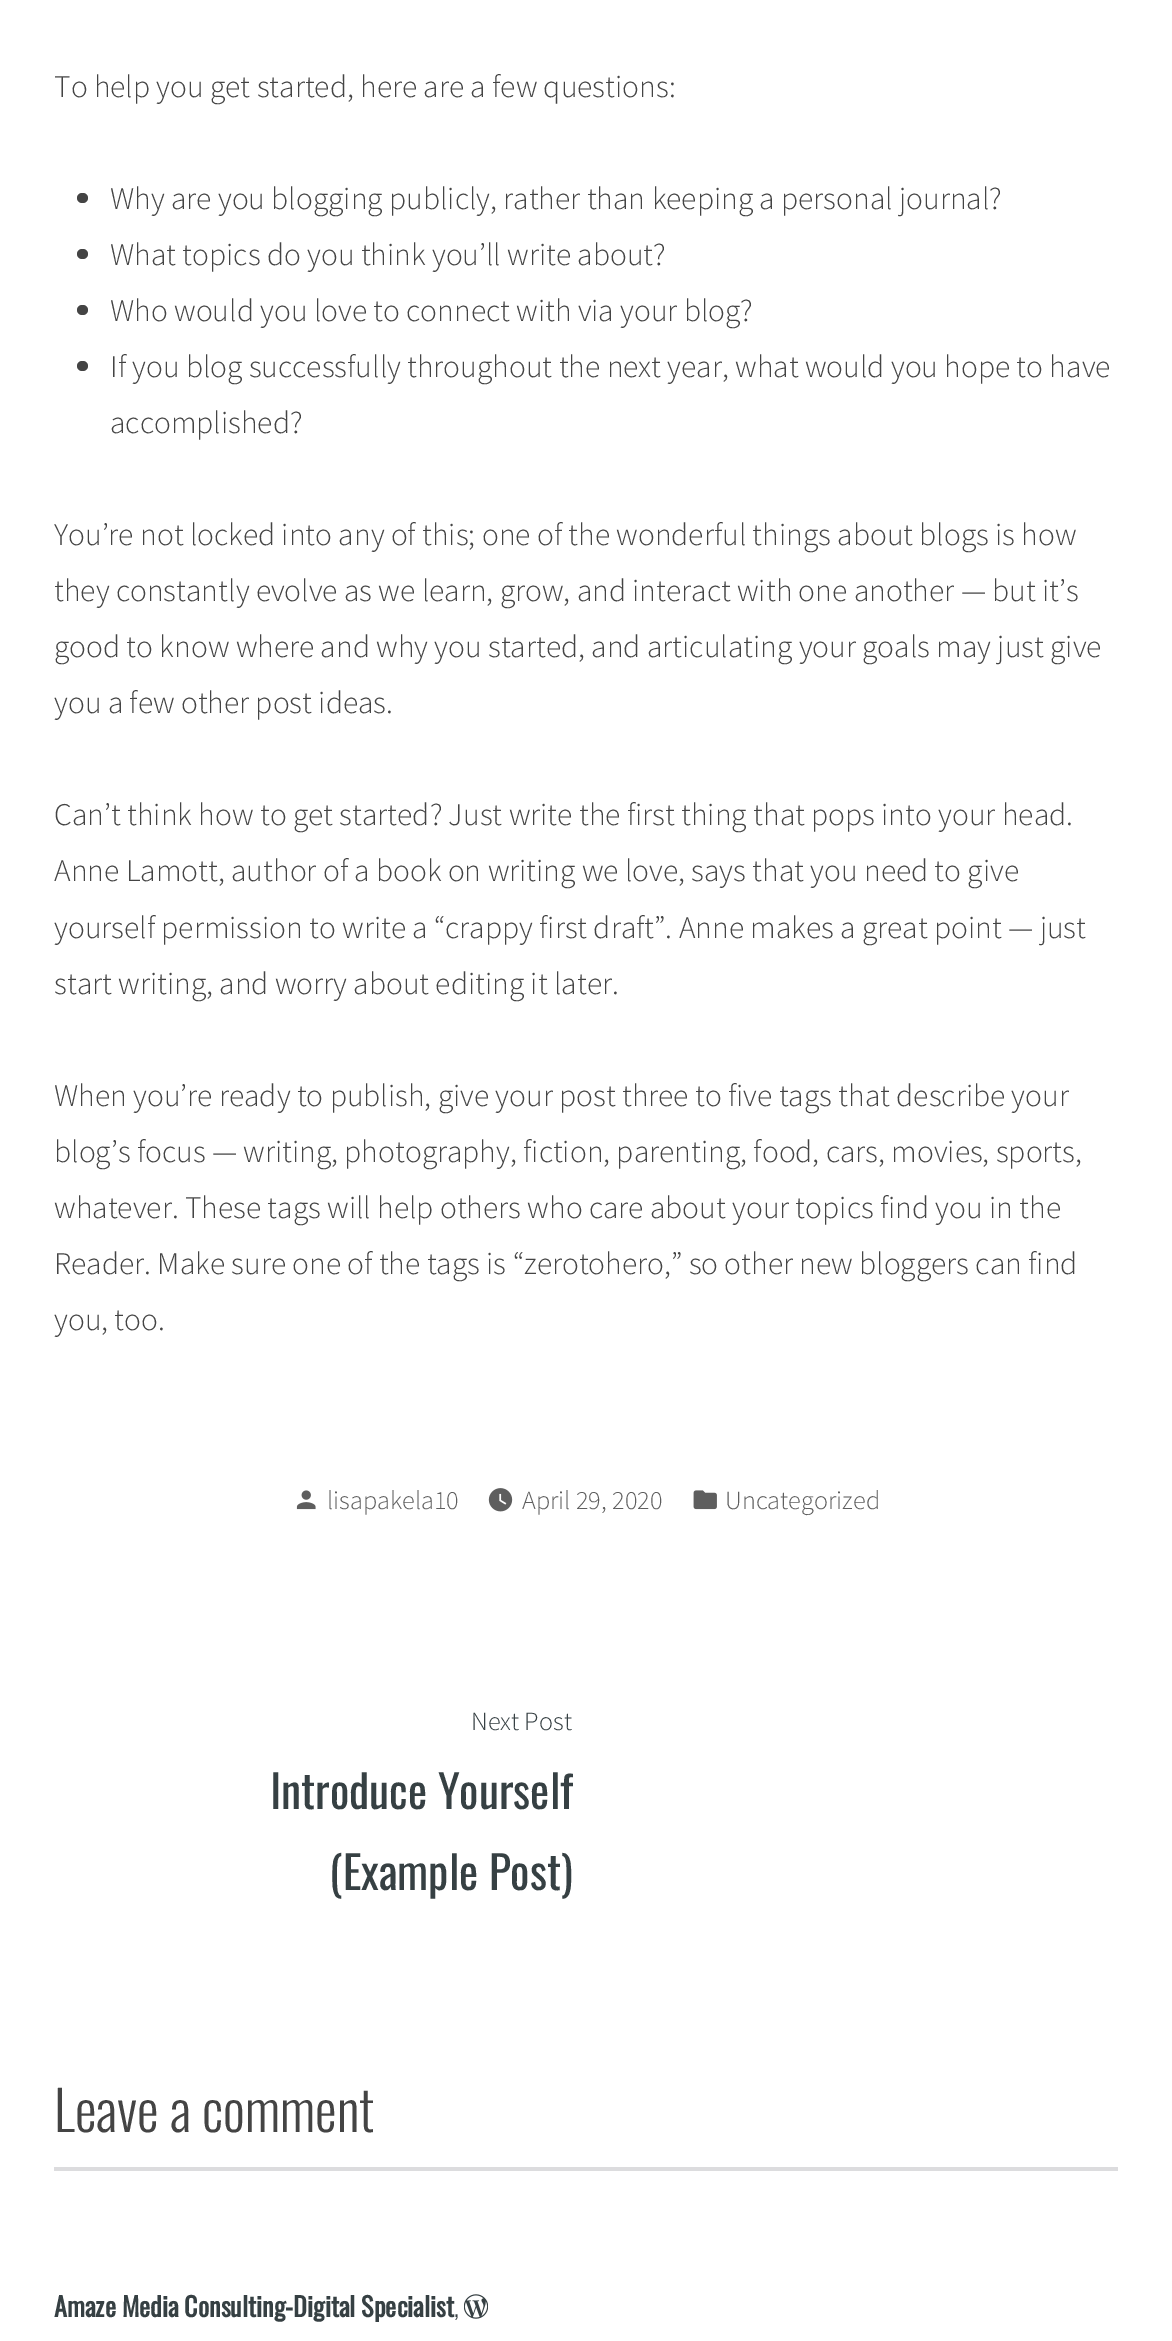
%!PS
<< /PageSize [1172 2341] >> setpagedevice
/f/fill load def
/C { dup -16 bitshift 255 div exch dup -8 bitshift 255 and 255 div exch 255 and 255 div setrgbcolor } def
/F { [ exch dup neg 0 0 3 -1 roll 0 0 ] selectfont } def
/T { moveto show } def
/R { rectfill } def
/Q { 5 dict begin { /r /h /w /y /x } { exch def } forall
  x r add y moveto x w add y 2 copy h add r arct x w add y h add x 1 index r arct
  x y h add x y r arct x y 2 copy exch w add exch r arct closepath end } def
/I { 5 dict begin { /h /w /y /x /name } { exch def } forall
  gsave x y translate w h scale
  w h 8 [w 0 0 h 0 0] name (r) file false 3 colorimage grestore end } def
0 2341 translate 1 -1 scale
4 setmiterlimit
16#FFFFFF C
0 0 1172 2341 R
/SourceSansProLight-Light 31.5 F
16#444444 C
(To help you get started, here are a few questions:) 54 97 T
77 193 11 10 5 Q f
(Why are you blogging publicly, rather than keeping a personal journal?) 110 209 T
77 249 11 10 5 Q f
(What topics do you think you’ll write about?) 110 265 T
77 305 11 10 5 Q f
(Who would you love to connect with via your blog?) 110 321 T
77 361 11 10 5 Q f
(If you blog successfully throughout the next year, what would you hope to have) 110 377 T
(accomplished?) 110 433 T
(You’re not locked into any of this; one of the wonderful things about blogs is how) 54 545 T
(they constantly evolve as we learn, grow, and interact with one another — but it’s) 54 601 T
(good to know where and why you started, and articulating your goals may just give) 54 657 T
(you a few other post ideas.) 54 713 T
(Can’t think how to get started? Just write the first thing that pops into your head.) 54 825 T
(Anne Lamott, author of a book on writing we love, says that you need to give) 54 881 T
(yourself permission to write a “crappy first draft”. Anne makes a great point — just) 54 938 T
(start writing, and worry about editing it later.) 54 994 T
(When you’re ready to publish, give your post three to five tags that describe your) 54 1106 T
(blog’s focus — writing, photography, fiction, parenting, food, cars, movies, sports,) 54 1162 T
(whatever. These tags will help others who care about your topics find you in the) 54 1218 T
(Reader. Make sure one of the tags is “zerotohero,” so other new bloggers can find) 54 1274 T
(you, too.) 54 1330 T
(1.rgb) 296 1490 20 20 I
/SourceSansProLight-Light 26.25 F
16#5E5E5E C
(lisapakela10) 327 1509 T
(2.rgb) 488 1488 25 24 I
(April 29, 2020) 522 1509 T
(3.rgb) 693 1490 24 20 I
(Uncategorized) 725 1509 T
16#364043 C
(Next Post) 471 1730 T
/Oswald-Regular 45.5 F
(Introduce Yourself) 270 1809 T
(\(Example Post\)) 329 1890 T
/Oswald-Light 54.5 F
16#444444 C
(Leave a comment) 54 2132 T
16#DCDCDE C
54 2167 1064 4 R
/Oswald-Bold 26.25 F
16#364043 C
(Amaze Media Consulting-Digital Specialist) 54 2317 T
/Oswald-Light 26.25 F
(,) 454 2317 T
(4.rgb) 464 2294 24 25 I
showpage
